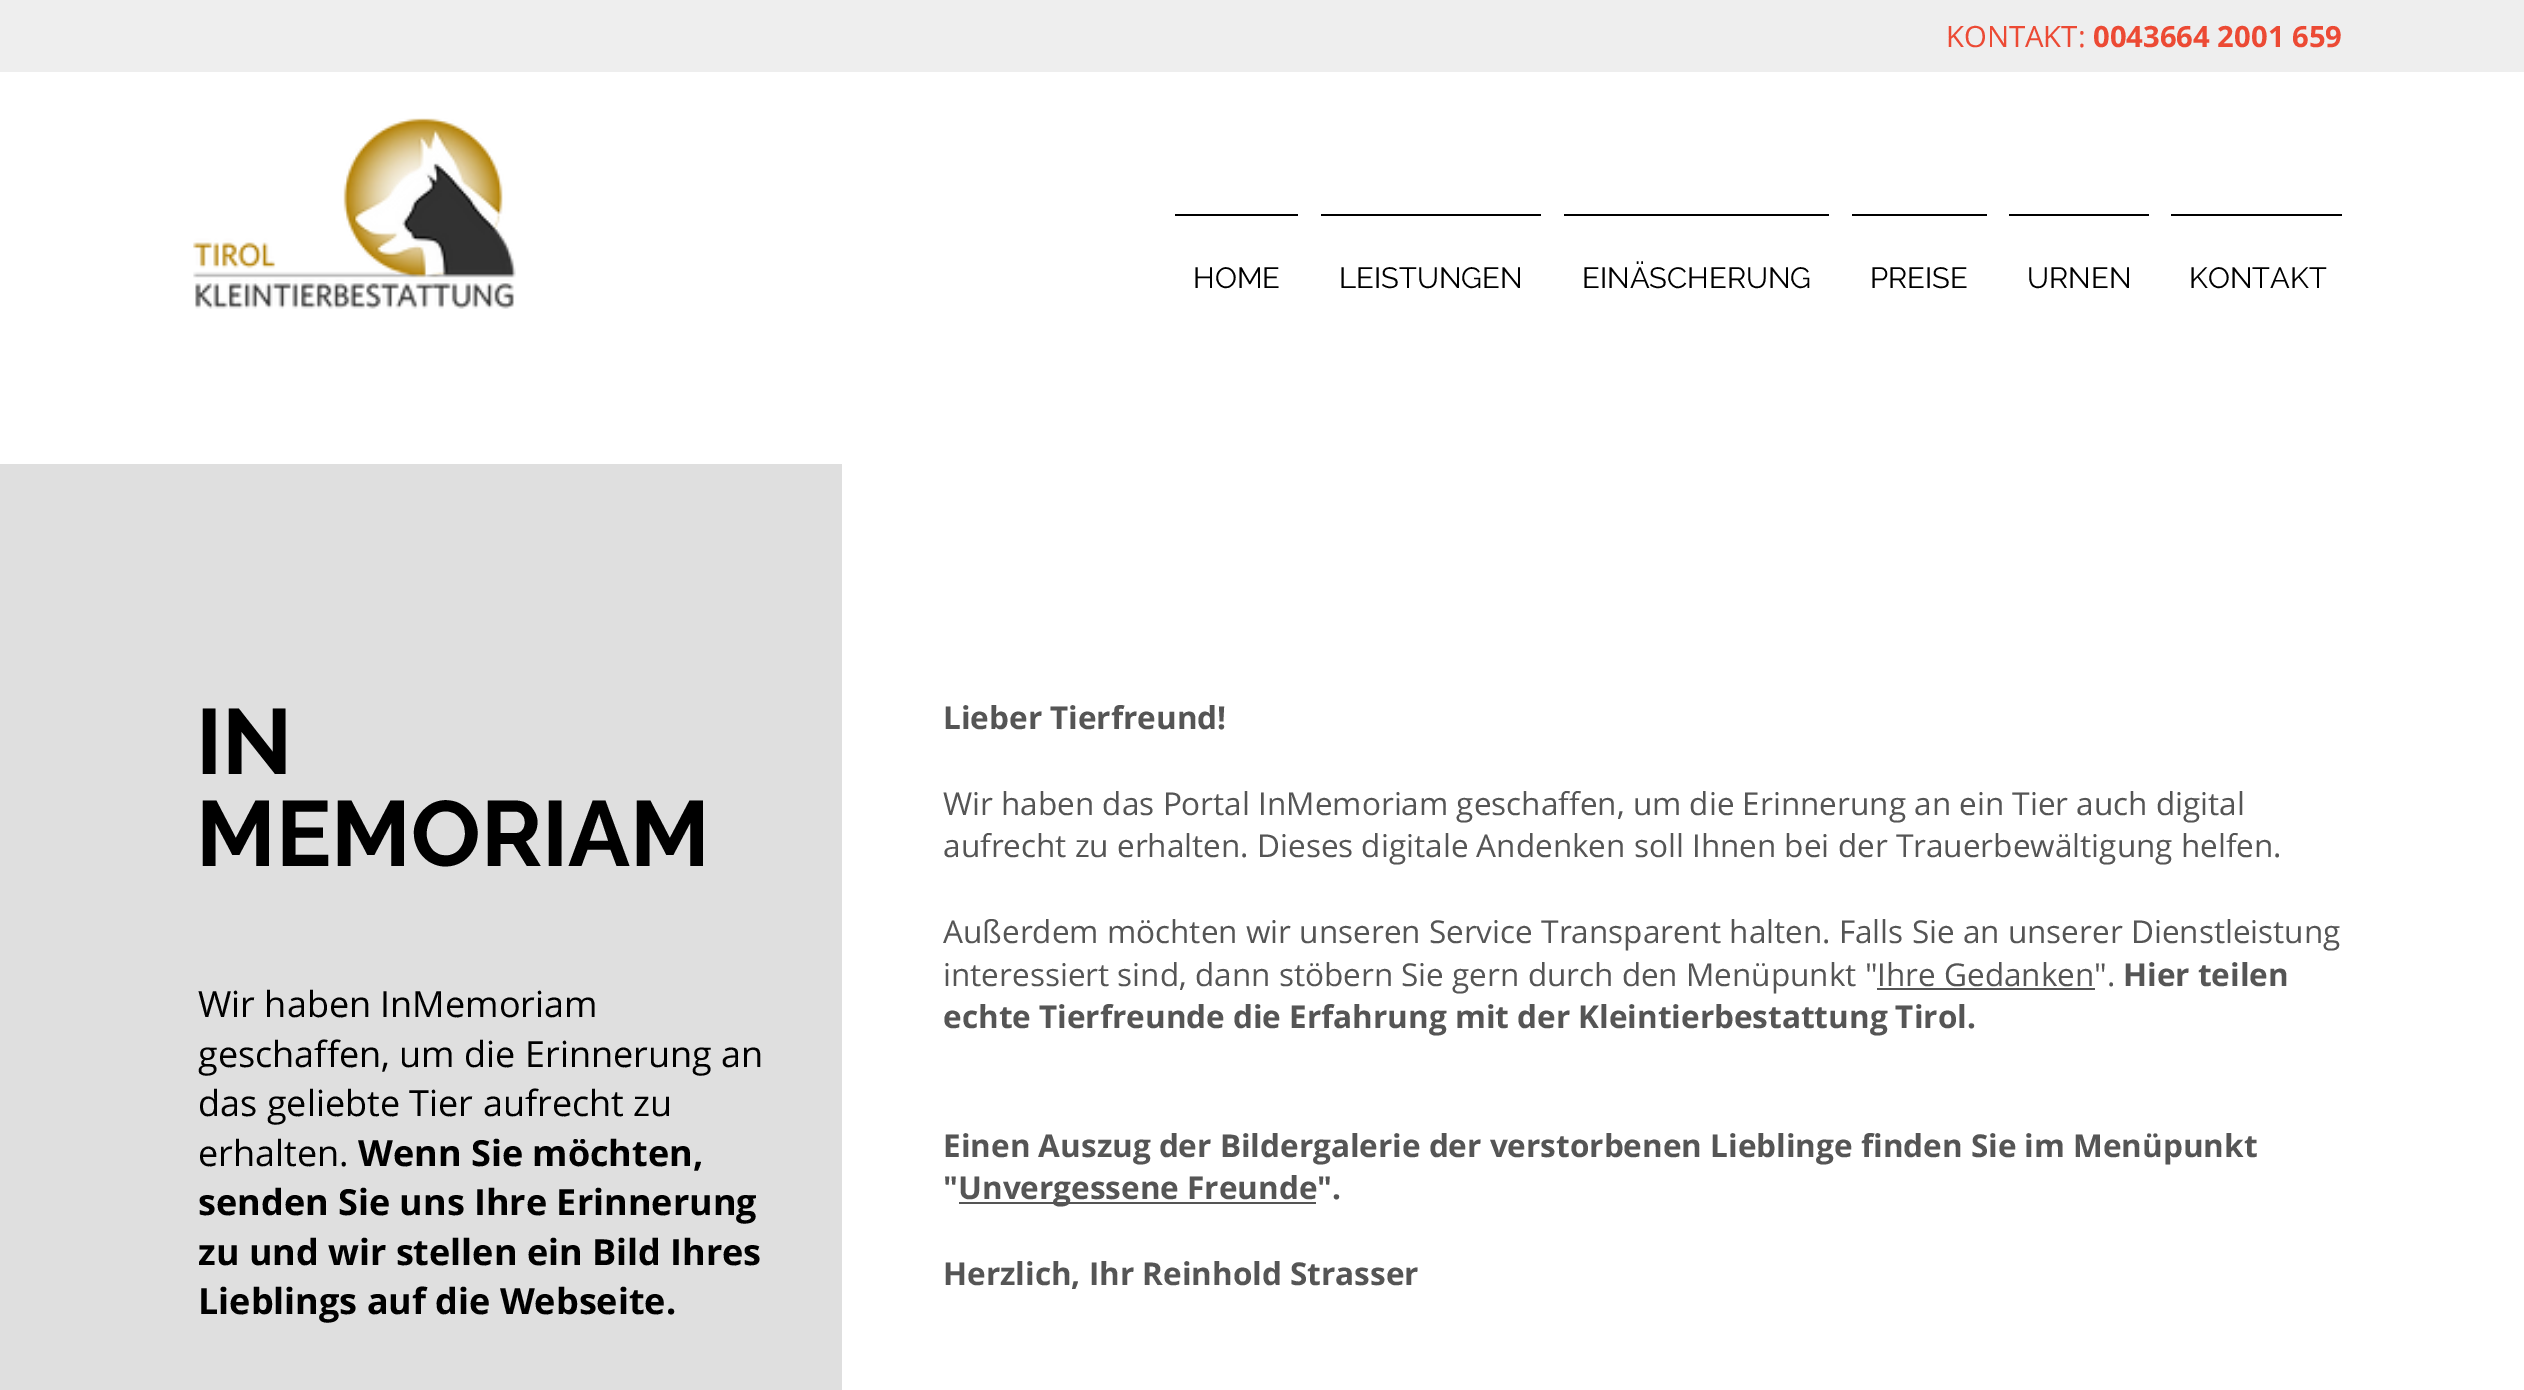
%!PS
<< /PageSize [2524 1390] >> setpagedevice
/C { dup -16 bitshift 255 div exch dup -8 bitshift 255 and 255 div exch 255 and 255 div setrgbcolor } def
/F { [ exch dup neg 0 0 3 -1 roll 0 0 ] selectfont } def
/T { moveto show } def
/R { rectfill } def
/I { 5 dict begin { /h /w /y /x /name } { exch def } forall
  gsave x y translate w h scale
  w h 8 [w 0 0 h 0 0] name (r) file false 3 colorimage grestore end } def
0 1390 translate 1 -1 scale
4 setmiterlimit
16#FFFFFF C
0 0 2524 1390 R
16#EEEEEE C
0 0 2524 72 R
/OpenSans-Regular 29.25 F
16#EC4A34 C
(KONTAKT:) 1946 47 T
/OpenSans-Bold 29.25 F
(0043664 2001 659) 2093 47 T
(1.rgb) 193 118 323 191 I
16#000000 C
1175 214 123 2 R
/Raleway-Regular 29.25 F
(HOME) 1193 288 T
1321 214 220 2 R
(LEISTUNGEN) 1339 288 T
1564 214 265 2 R
(EINÄSCHERUNG) 1582 288 T
1852 214 135 2 R
(PREISE) 1870 288 T
2009 214 140 2 R
(URNEN) 2027 288 T
2171 214 171 2 R
(KONTAKT) 2189 288 T
16#DFDFDF C
0 464 842 926 R
/Raleway-Bold 92.25 F
16#000000 C
(IN) 196 774 T
(MEMORIAM) 196 866 T
/OpenSans-Regular 36 F
(Wir haben InMemoriam) 198 1017 T
(geschaffen, um die Erinnerung an) 198 1067 T
(das geliebte Tier aufrecht zu) 198 1116 T
(erhalten.) 198 1166 T
/OpenSans-Bold 36 F
(Wenn Sie möchten,) 358 1166 T
(senden Sie uns Ihre Erinnerung) 198 1215 T
(zu und wir stellen ein Bild Ihres) 198 1265 T
(Lieblings auf die Webseite.) 198 1314 T
/OpenSans-Bold 31.5 F
16#555555 C
(Lieber Tierfreund!) 943 729 T
/OpenSans-Regular 31.5 F
(Wir haben das Portal InMemoriam geschaffen, um die Erinnerung an ein Tier auch digital) 943 815 T
(aufrecht zu erhalten. Dieses digitale Andenken soll Ihnen bei der Trauerbewältigung helfen.) 943 857 T
(Außerdem möchten wir unseren Service Transparent halten. Falls Sie an unserer Dienstleistung) 943 943 T
(interessiert sind, dann stöbern Sie gern durch den Menüpunkt "Ihre Gedanken".) 943 986 T
1877 988 218 2 R
/OpenSans-Bold 31.5 F
(Hier teilen) 2123 986 T
(echte Tierfreunde die Erfahrung mit der Kleintierbestattung Tirol.) 943 1028 T
(Einen Auszug der Bildergalerie der verstorbenen Lieblinge finden Sie im Menüpunkt) 943 1157 T
(") 943 1199 T
959 1202 357 2 R
(Unvergessene Freunde".) 958 1199 T
(Herzlich, Ihr Reinhold Strasser) 943 1285 T
showpage
